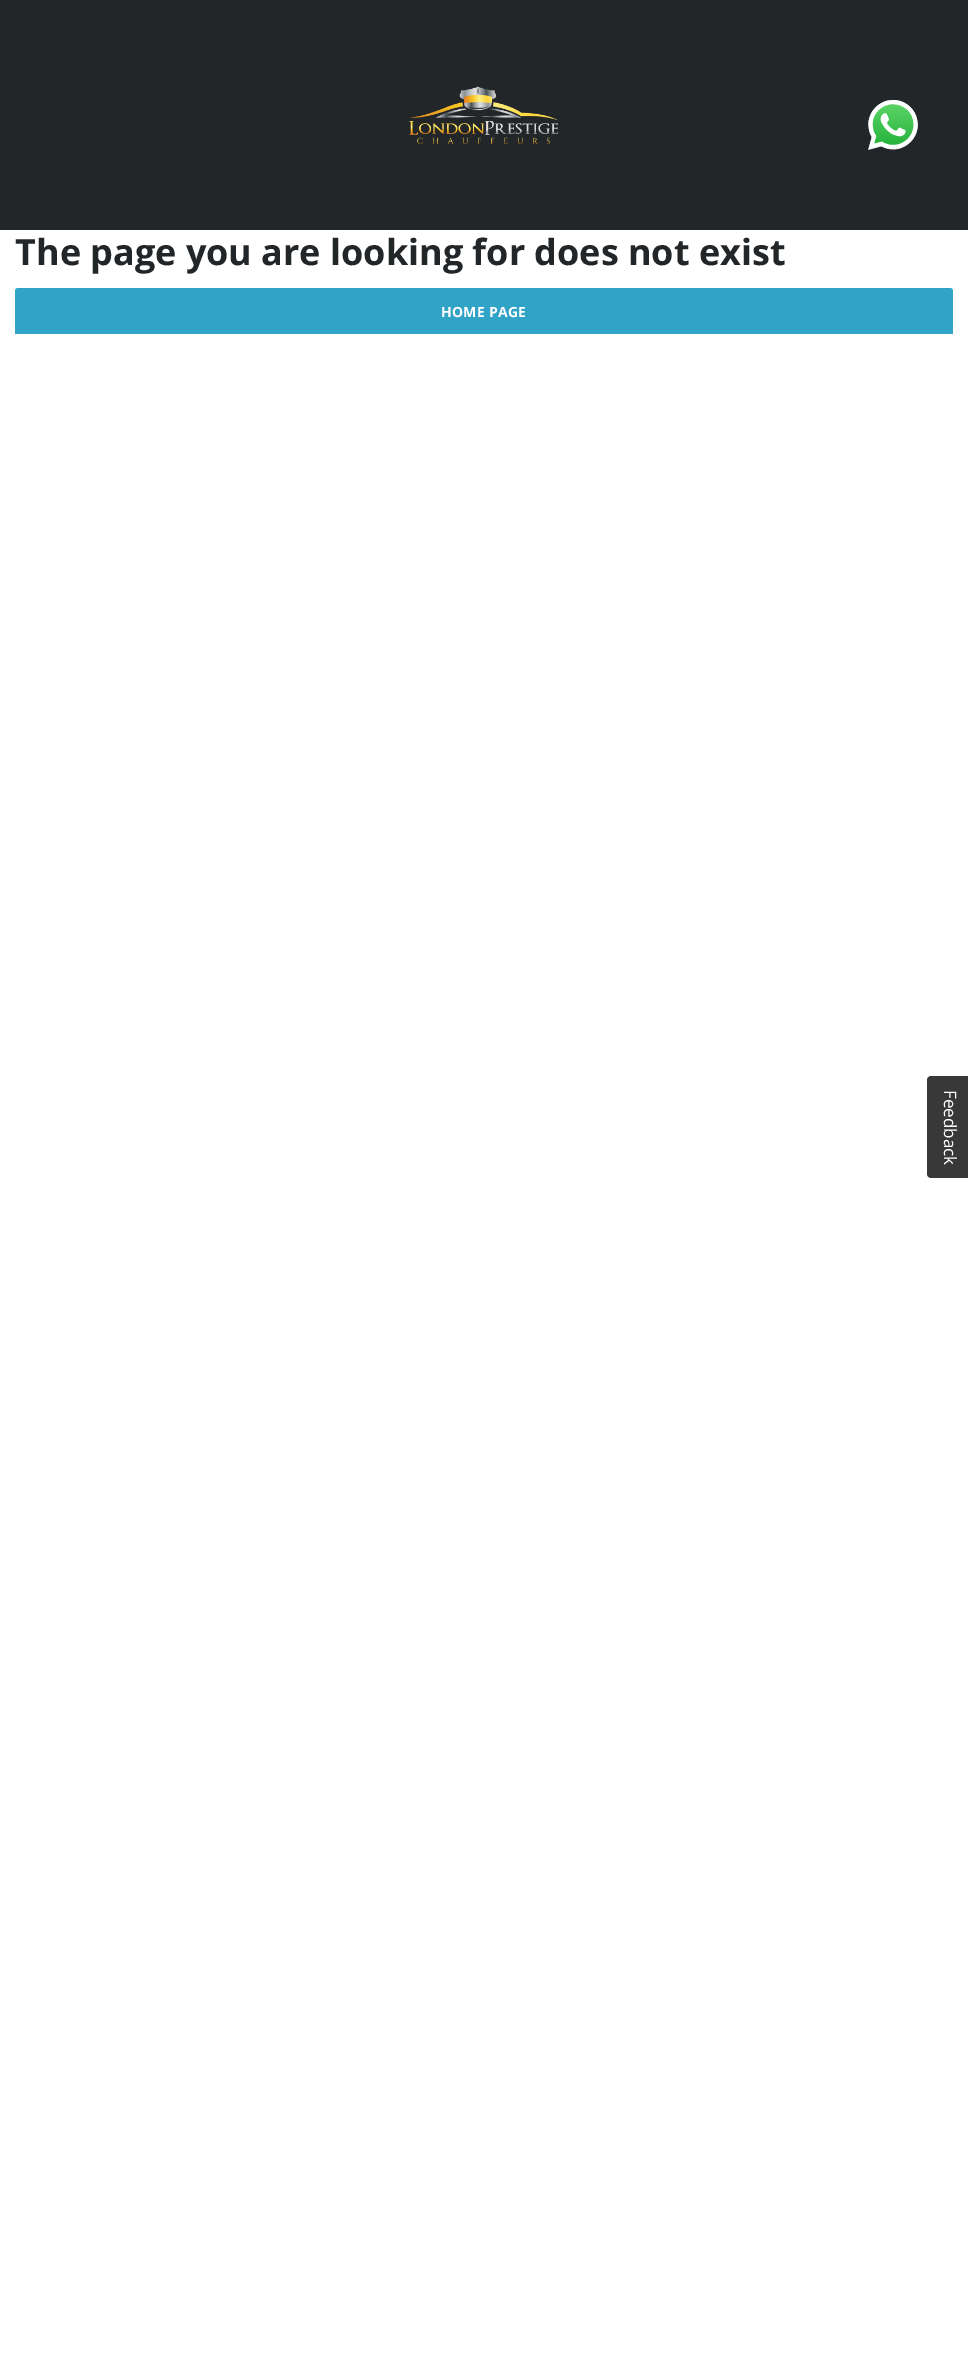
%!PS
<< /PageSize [968 2356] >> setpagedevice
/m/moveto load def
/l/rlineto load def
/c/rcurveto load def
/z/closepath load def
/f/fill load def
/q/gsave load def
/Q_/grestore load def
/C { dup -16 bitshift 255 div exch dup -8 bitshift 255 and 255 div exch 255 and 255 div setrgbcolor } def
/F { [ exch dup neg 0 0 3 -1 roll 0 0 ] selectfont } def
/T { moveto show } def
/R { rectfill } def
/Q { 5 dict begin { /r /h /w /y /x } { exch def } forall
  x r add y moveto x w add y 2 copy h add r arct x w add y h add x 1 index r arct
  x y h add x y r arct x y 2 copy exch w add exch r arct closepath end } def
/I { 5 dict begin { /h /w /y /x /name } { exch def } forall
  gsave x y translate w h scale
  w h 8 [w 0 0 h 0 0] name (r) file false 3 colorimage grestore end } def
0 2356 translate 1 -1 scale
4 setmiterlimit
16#FFFFFF C
0 0 968 2356 R
16#232628 C
0 0 968 230 R
(1.rgb) 868 100 50 50 I
(2.rgb) 409 86 150 58 I
/OpenSans-Bold 36 F
(The page you are looking for does not exist) 15 265 T
q
0 0 968 334 rectclip
16#27829E C
15 331 m 0 2 l 0 2 1 3 3 3 c 932 0 l 2 0 3 -1 3 -3 c 0 -2 l 0 2 -1 3 -3 3 c -932 0 l -2 0 -3 -1 -3 -3 c z f
Q_
16#31A3C6 C
15 288 938 46 3 Q f
/OpenSans-Bold 14 F
16#FFFFFF C
441 317 m .25 0 (HOME PAGE) ashow
16#383838 C
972 1080 m 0 94 l 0 2 -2 4 -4 4 c -37 0 l -2 0 -4 -2 -4 -4 c 0 -94 l 0 -2 2 -4 4 -4 c 37 0 l 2 0 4 2 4 4 c z f
/OpenSans-Regular 17 F
16#FFFFFF C
q 944 1090 translate 90 rotate 0 0 m (Feedback) show Q_
showpage
